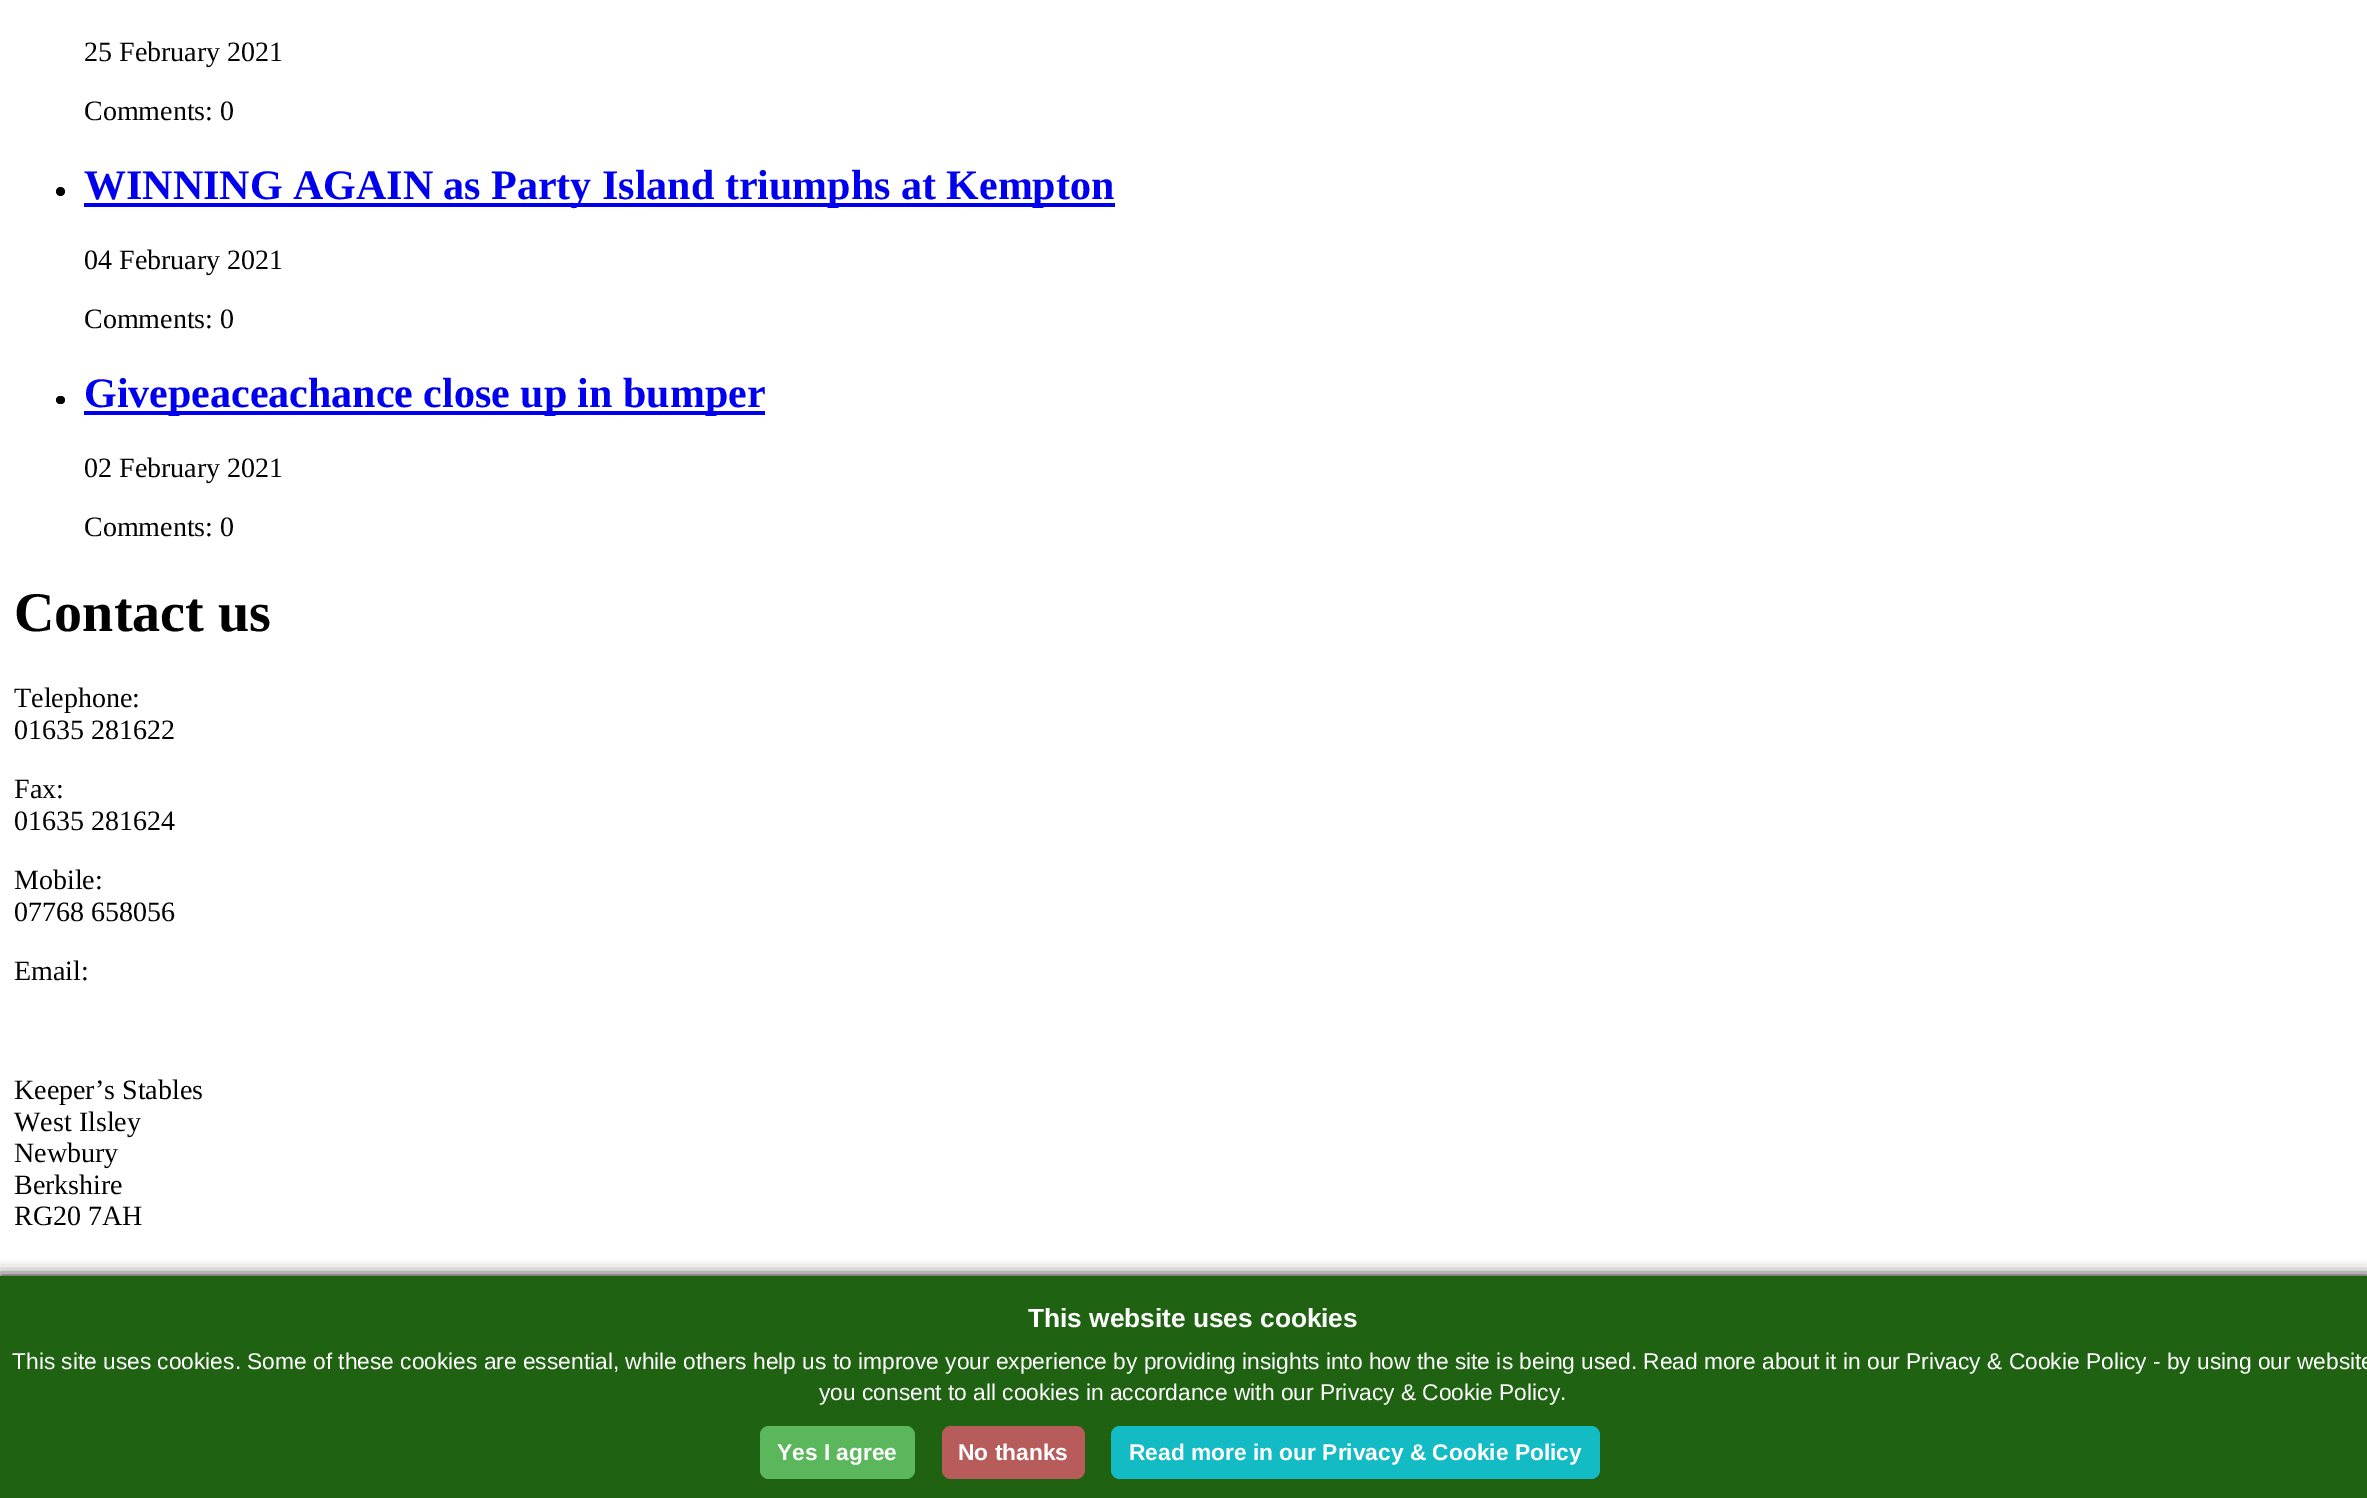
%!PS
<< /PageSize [2367 1498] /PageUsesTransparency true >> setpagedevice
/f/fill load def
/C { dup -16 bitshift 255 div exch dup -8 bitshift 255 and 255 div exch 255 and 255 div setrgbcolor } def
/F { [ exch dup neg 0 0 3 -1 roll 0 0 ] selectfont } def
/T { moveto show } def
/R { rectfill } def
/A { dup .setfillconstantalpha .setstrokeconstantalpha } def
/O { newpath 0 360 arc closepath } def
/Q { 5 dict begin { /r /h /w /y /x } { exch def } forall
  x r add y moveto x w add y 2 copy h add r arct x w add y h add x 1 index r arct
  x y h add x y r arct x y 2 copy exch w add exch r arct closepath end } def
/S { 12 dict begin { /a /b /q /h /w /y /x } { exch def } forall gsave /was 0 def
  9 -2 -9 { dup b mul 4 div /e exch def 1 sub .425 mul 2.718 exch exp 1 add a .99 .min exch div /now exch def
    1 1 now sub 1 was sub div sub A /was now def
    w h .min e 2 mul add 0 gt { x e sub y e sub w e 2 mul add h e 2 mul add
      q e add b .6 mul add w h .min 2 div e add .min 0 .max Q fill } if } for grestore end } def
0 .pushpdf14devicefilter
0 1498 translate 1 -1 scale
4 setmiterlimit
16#FFFFFF C
0 0 2367 1498 R
/LiberationSerif-Regular 28 F
16#000000 C
(25 February 2021) 84 61 T
(Comments: 0) 84 120 T
60.5 191.5 4.5 O f
16#0000EE C
84 203 1031 4 R
/LiberationSerif-Bold 42 F
(WINNING AGAIN as Party Island triumphs at Kempton) 84 199 T
/LiberationSerif-Regular 28 F
16#000000 C
(04 February 2021) 84 269 T
(Comments: 0) 84 328 T
56 396 9 8 4 Q f
16#0000EE C
84 411 681 4 R
/LiberationSerif-Bold 42 F
(Givepeaceachance close up in bumper) 84 407 T
/LiberationSerif-Regular 28 F
16#000000 C
(02 February 2021) 84 477 T
(Comments: 0) 84 536 T
/LiberationSerif-Bold 56 F
(Contact us) 14 631 T
/LiberationSerif-Regular 28 F
(Telephone:) 14 707 T
(01635 281622) 14 739 T
(Fax:) 14 798 T
(01635 281624) 14 830 T
(Mobile:) 14 889 T
(07768 658056) 14 921 T
(Email:) 14 980 T
(Keeper’s Stables) 14 1099 T
(West Ilsley) 14 1131 T
(Newbury) 14 1162 T
(Berkshire) 14 1194 T
(RG20 7AH) 14 1225 T
0 1276 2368 222 0 7 1 S
16#1F6312 C
0 1276 2367 222 R
/LiberationSans-Bold 26.25 F
16#FFFFFF C
(This website uses cookies) 1028 1327 T
/LiberationSans-Regular 22.75 F
(This site uses cookies. Some of these cookies are essential, while others help us to improve your experience by providing insights into how the site is being used. Read more about it in our Privacy & Cookie Policy - by using our website) 12 1369 T
(you consent to all cookies in accordance with our Privacy & Cookie Policy.) 819 1400 T
16#5BB75B C
760 1426 155 53 9 Q f
/LiberationSans-Bold 22.75 F
16#FFFFFF C
(Yes I agree) 777 1460 T
16#B75B5B C
942 1426 143 53 9 Q f
16#FFFFFF C
(No thanks) 958 1460 T
16#13BBC4 C
1111 1426 489 53 9 Q f
16#FFFFFF C
(Read more in our Privacy & Cookie Policy) 1129 1460 T
.poppdf14devicefilter showpage
